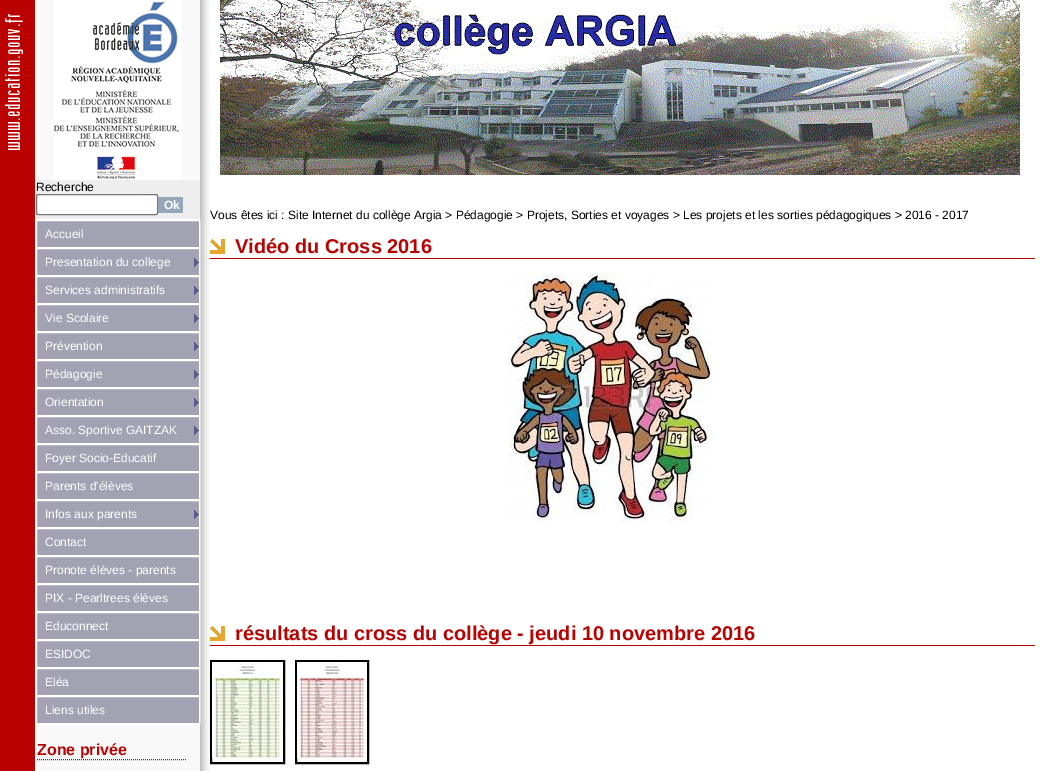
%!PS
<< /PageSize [1046 771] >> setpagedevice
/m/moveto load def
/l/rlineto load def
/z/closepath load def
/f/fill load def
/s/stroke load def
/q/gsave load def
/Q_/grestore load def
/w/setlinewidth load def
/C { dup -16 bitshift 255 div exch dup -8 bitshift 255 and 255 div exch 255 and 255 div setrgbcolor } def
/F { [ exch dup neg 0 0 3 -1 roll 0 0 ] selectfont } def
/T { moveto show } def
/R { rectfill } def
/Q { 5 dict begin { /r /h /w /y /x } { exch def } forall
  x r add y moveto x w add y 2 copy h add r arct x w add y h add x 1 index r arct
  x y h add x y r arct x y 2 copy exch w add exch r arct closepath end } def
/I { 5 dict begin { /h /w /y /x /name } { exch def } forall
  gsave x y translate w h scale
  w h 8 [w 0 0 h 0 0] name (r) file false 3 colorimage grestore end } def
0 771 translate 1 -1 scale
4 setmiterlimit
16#FFFFFF C
0 0 1046 771 R
(1.rgb) 0 0 210 771 I
(2.rgb) 5 14 18 136 I
(3.rgb) 220 0 800 175 I
(4.rgb) 53 0 129 180 I
16#EEEEEE C
35 180 165 39 R
/LiberationSans-Regular 12 F
16#000000 C
(Recherche) 36 191 T
16#FFFFFF C
36.5 194.5 121 20 1.5 Q q f Q_
16#767676 C
s
16#95A6B9 C
158 197 25 16 R
/LiberationSans-Bold 12 F
16#FFFFFF C
(Ok) 164 209 T
35.5 219.5 164 505 rectstroke
16#A2A2B3 C
36.5 220.5 m 163 0 l 0 27 l -163 0 l z q f Q_
16#FFFFFF C
s
/LiberationSans-Regular 12 F
(Accueil) 45 238 T
16#A2A2B3 C
37 249 162 26 R
(5.rgb) 194 258 5 9 I
16#FFFFFF C
36.5 248.5 163 27 rectstroke
(Presentation du college) 45 266 T
16#A2A2B3 C
37 277 162 26 R
(5.rgb) 194 286 5 9 I
16#FFFFFF C
36.5 276.5 163 27 rectstroke
(Services administratifs) 45 294 T
16#A2A2B3 C
37 305 162 26 R
(5.rgb) 194 314 5 9 I
16#FFFFFF C
36.5 304.5 163 27 rectstroke
(Vie Scolaire) 45 322 T
16#A2A2B3 C
37 333 162 26 R
(5.rgb) 194 342 5 9 I
16#FFFFFF C
36.5 332.5 163 27 rectstroke
(Prévention) 45 350 T
16#A2A2B3 C
37 361 162 26 R
(5.rgb) 194 370 5 9 I
16#FFFFFF C
36.5 360.5 163 27 rectstroke
(Pédagogie) 45 378 T
16#A2A2B3 C
37 389 162 26 R
(5.rgb) 194 398 5 9 I
16#FFFFFF C
36.5 388.5 163 27 rectstroke
(Orientation) 45 406 T
16#A2A2B3 C
37 417 162 26 R
(5.rgb) 194 426 5 9 I
16#FFFFFF C
36.5 416.5 163 27 rectstroke
(Asso. Sportive GAITZAK) 45 434 T
16#A2A2B3 C
36.5 444.5 m 163 0 l 0 27 l -163 0 l z q f Q_
16#FFFFFF C
s
(Foyer Socio-Educatif) 45 462 T
16#A2A2B3 C
36.5 472.5 m 163 0 l 0 27 l -163 0 l z q f Q_
16#FFFFFF C
s
(Parents d'élèves) 45 490 T
16#A2A2B3 C
37 501 162 26 R
(5.rgb) 194 510 5 9 I
16#FFFFFF C
36.5 500.5 163 27 rectstroke
(Infos aux parents) 45 518 T
16#A2A2B3 C
36.5 528.5 m 163 0 l 0 27 l -163 0 l z q f Q_
16#FFFFFF C
s
(Contact) 45 546 T
16#A2A2B3 C
36.5 556.5 m 163 0 l 0 27 l -163 0 l z q f Q_
16#FFFFFF C
s
(Pronote élèves - parents) 45 574 T
16#A2A2B3 C
36.5 584.5 m 163 0 l 0 27 l -163 0 l z q f Q_
16#FFFFFF C
s
(PIX - Pearltrees élèves) 45 602 T
16#A2A2B3 C
36.5 612.5 m 163 0 l 0 27 l -163 0 l z q f Q_
16#FFFFFF C
s
(Educonnect) 45 630 T
16#A2A2B3 C
36.5 640.5 m 163 0 l 0 27 l -163 0 l z q f Q_
16#FFFFFF C
s
(ESIDOC) 45 658 T
16#A2A2B3 C
36.5 668.5 m 163 0 l 0 27 l -163 0 l z q f Q_
16#FFFFFF C
s
(Eléa) 45 686 T
16#A2A2B3 C
36.5 696.5 m 163 0 l 0 27 l -163 0 l z q f Q_
16#FFFFFF C
s
(Liens utiles) 45 714 T
16#BA0202 C
[1 1] 0 setdash
37 759.5 m 149 0 l s
/LiberationSans-Bold 16 F
(Zone privée) 37 755 T
/LiberationSans-Regular 12 F
16#000000 C
(Vous êtes ici : Site Internet du collège Argia > Pédagogie > Projets, Sorties et voyages > Les projets et les sorties pédagogiques > 2016 - 2017) 210 219 T
(6.rgb) 210 239 15 15 I
16#BA0202 C
210 258 825 1 R
/LiberationSans-Bold 20 F
(Vidéo du Cross 2016) 235 253 T
(7.rgb) 509 273 203 248 I
(6.rgb) 210 626 15 15 I
210 645 825 1 R
(résultats du cross du collège - jeudi 10 novembre 2016) 235 640 T
16#000000 C
2 w
[] 0 setdash
211 661 73 102 rectstroke
(8.rgb) 212 662 71 96 I
296 661 72 102 rectstroke
(9.rgb) 297 662 70 96 I
showpage
